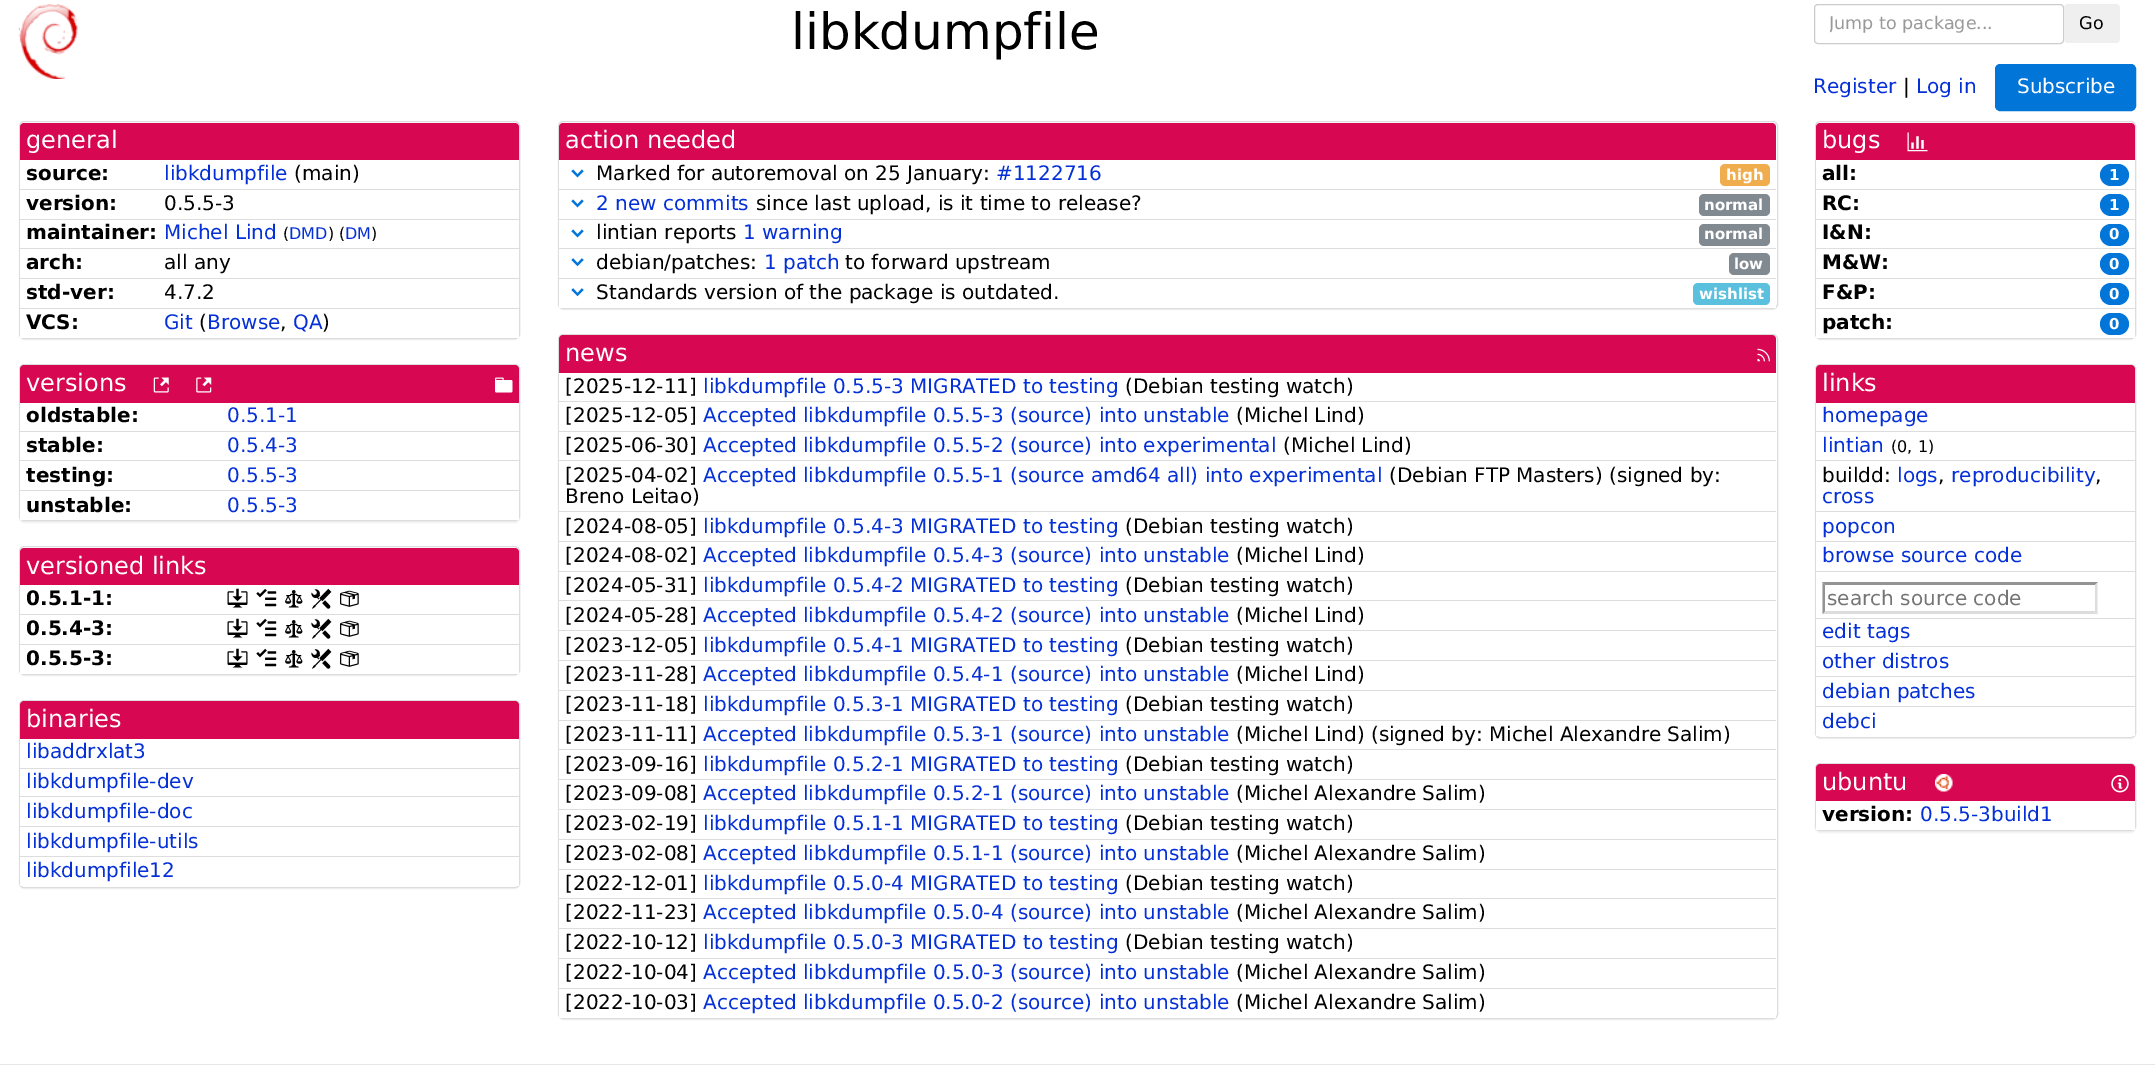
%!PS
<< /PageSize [2155 1075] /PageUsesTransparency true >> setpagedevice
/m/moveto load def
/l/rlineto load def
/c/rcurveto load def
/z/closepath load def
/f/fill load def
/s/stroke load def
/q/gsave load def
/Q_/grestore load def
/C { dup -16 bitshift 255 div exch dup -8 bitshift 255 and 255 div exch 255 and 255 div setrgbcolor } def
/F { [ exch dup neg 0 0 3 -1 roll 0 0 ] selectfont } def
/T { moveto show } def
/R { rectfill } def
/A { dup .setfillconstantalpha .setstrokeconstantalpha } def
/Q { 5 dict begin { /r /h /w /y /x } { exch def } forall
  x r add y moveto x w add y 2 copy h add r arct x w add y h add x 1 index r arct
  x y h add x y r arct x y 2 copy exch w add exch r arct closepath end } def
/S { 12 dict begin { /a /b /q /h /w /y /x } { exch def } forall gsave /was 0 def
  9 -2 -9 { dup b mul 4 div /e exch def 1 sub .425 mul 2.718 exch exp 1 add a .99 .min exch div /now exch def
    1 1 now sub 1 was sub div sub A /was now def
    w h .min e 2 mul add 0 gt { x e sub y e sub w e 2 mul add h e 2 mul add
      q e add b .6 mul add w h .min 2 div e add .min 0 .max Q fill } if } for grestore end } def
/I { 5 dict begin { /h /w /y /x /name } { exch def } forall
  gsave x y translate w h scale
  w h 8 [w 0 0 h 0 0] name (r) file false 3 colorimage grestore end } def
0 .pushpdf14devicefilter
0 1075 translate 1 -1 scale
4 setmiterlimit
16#FFFFFF C
0 0 2155 1075 R
(1.rgb) 18 4 60 75 I
/DejaVuSans-Regular 50 F
16#000000 C
(libkdumpfile) 791 49 T
16#CCCCCC C
1814.5 4.5 249 39 3.5 Q s
q
1830 13 213 20 rectclip
/DejaVuSans-Regular 17.5 F
16#999999 C
(Jump to package...) 1829 29 T
Q_
16#EFEFEF C
2064 4 56 39 4 Q f
/DejaVuSans-Regular 17.5 F
16#000000 C
(Go) 2079 29 T
/DejaVuSans-Regular 20 F
16#0530D7 C
(Register) 1813 93 T
16#000000 C
(|) 1903 93 T
16#0530D7 C
(Log in) 1916 93 T
16#0275D8 C
1995.5 64.5 140 46 4.5 Q q f Q_
s
16#FFFFFF C
(Subscribe) 2017 93 T
16#000000 C
19 123 501 217 5 .5 .05 S
16#FFFFFF C
19.5 121.5 500 217 4.5 Q q f Q_
16#DDDDDD C
s
16#D70751 C
24 123 m 491 0 l 2 0 4 2 4 4 c 0 34 l -499 0 l 0 -34 l 0 -2 2 -4 4 -4 c z f
/DejaVuSans-Regular 24 F
16#FFFFFF C
(general) 26 148 T
20 160 499 178 R
16#DDDDDD C
20 189 499 1 R
/DejaVuSans-Bold 20 F
16#000000 C
(source:) 26 180 T
/DejaVuSans-Regular 20 F
16#0530D7 C
(libkdumpfile) 164 180 T
16#000000 C
(\(main\)) 294 180 T
16#DDDDDD C
20 219 499 1 R
/DejaVuSans-Bold 20 F
16#000000 C
(version:) 26 210 T
/DejaVuSans-Regular 20 F
(0.5.5-3) 164 210 T
16#DDDDDD C
20 248 499 1 R
/DejaVuSans-Bold 20 F
16#000000 C
(maintainer:) 26 239 T
/DejaVuSans-Regular 20 F
16#0530D7 C
(Michel Lind) 164 239 T
/DejaVuSans-Regular 16 F
16#000000 C
(\() 283 239 T
16#0530D7 C
(DMD) 289 239 T
16#000000 C
(\) \() 328 239 T
16#0530D7 C
(DM) 345 239 T
16#000000 C
(\)) 371 239 T
16#DDDDDD C
20 278 499 1 R
/DejaVuSans-Bold 20 F
16#000000 C
(arch:) 26 269 T
/DejaVuSans-Regular 20 F
(all any) 164 269 T
/DejaVuSans-Bold 20 F
(std-ver:) 26 299 T
/DejaVuSans-Regular 20 F
(4.7.2) 164 299 T
16#DDDDDD C
20 308 499 1 R
/DejaVuSans-Bold 20 F
16#000000 C
(VCS:) 26 329 T
/DejaVuSans-Regular 20 F
16#0530D7 C
(Git) 164 329 T
16#000000 C
(\() 199 329 T
16#0530D7 C
(Browse) 207 329 T
16#000000 C
(,) 280 329 T
16#0530D7 C
(QA) 293 329 T
16#000000 C
(\)) 322 329 T
19 365 501 158 5 .5 .05 S
16#DDDDDD C
19.5 364.5 500 156 4.5 Q s
16#D70751 C
24 365 m 491 0 l 2 0 4 2 4 4 c 0 35 l -499 0 l 0 -35 l 0 -2 2 -4 4 -4 c z f
/DejaVuSans-Regular 24 F
16#FFFFFF C
(versions) 26 391 T
(2.rgb) 153 377 16 16 I
(3.rgb) 196 377 16 16 I
(4.rgb) 495 377 18 16 I
20 403 499 117 R
16#DDDDDD C
20 431 499 1 R
/DejaVuSans-Bold 20 F
16#000000 C
(oldstable:) 26 422 T
/DejaVuSans-Regular 20 F
16#0530D7 C
(0.5.1-1) 227 422 T
16#DDDDDD C
20 460 499 1 R
/DejaVuSans-Bold 20 F
16#000000 C
(stable:) 26 452 T
/DejaVuSans-Regular 20 F
16#0530D7 C
(0.5.4-3) 227 452 T
/DejaVuSans-Bold 20 F
16#000000 C
(testing:) 26 482 T
/DejaVuSans-Regular 20 F
16#0530D7 C
(0.5.5-3) 227 482 T
16#DDDDDD C
20 490 499 1 R
/DejaVuSans-Bold 20 F
16#000000 C
(unstable:) 26 512 T
/DejaVuSans-Regular 20 F
16#0530D7 C
(0.5.5-3) 227 512 T
16#000000 C
19 548 501 128 5 .5 .05 S
16#FFFFFF C
19.5 546.5 500 128 4.5 Q q f Q_
16#DDDDDD C
s
16#D70751 C
24 548 m 491 0 l 2 0 4 2 4 4 c 0 34 l -499 0 l 0 -34 l 0 -2 2 -4 4 -4 c z f
/DejaVuSans-Regular 24 F
16#FFFFFF C
(versioned links) 26 574 T
20 585 499 89 R
16#DDDDDD C
20 614 499 1 R
/DejaVuSans-Bold 20 F
16#000000 C
(0.5.1-1:) 26 605 T
(5.rgb) 227 588 21 20 I
(6.rgb) 256 588 21 19 I
(7.rgb) 285 590 18 18 I
(8.rgb) 311 588 21 21 I
(9.rgb) 340 590 19 17 I
(0.5.4-3:) 26 635 T
(5.rgb) 227 618 21 20 I
(6.rgb) 256 618 21 19 I
(7.rgb) 285 620 18 18 I
(8.rgb) 311 618 21 21 I
(9.rgb) 340 620 19 17 I
16#DDDDDD C
20 644 499 1 R
16#000000 C
(0.5.5-3:) 26 665 T
(5.rgb) 227 648 21 20 I
(6.rgb) 256 648 21 19 I
(7.rgb) 285 650 18 18 I
(8.rgb) 311 648 21 21 I
(9.rgb) 340 650 19 17 I
19 701 501 188 5 .5 .05 S
16#FFFFFF C
19.5 700.5 500 187 4.5 Q q f Q_
16#DDDDDD C
s
16#D70751 C
24 701 m 491 0 l 2 0 4 2 4 4 c 0 35 l -499 0 l 0 -35 l 0 -2 2 -4 4 -4 c z f
/DejaVuSans-Regular 24 F
16#FFFFFF C
(binaries) 26 727 T
20 739 499 147 R
16#DDDDDD C
20 768 499 1 R
/DejaVuSans-Regular 20 F
16#0530D7 C
(libaddrxlat3) 26 758 T
16#DDDDDD C
20 796 499 1 R
16#0530D7 C
(libkdumpfile-dev) 26 788 T
16#DDDDDD C
20 826 499 1 R
16#0530D7 C
(libkdumpfile-doc) 26 818 T
(libkdumpfile-utils) 26 848 T
16#DDDDDD C
20 856 499 1 R
16#0530D7 C
(libkdumpfile12) 26 877 T
16#000000 C
558 123 1220 187 5 .5 .05 S
16#FFFFFF C
558.5 121.5 1219 187 4.5 Q q f Q_
16#DDDDDD C
s
16#D70751 C
563 123 m 1209 0 l 2 0 4 2 4 4 c 0 34 l -1217 0 l 0 -34 l 0 -2 2 -4 4 -4 c z f
/DejaVuSans-Regular 24 F
16#FFFFFF C
(action needed) 565 148 T
559 160 1217 148 R
16#DDDDDD C
559 189 1217 1 R
(10.rgb) 571 169 13 9 I
/DejaVuSans-Regular 20 F
16#000000 C
(Marked for autoremoval on 25 January:) 596 180 T
16#0530D7 C
(#1122716) 996 180 T
16#F0AD4E C
1720 164 50 22 5 Q f
/DejaVuSans-Bold 15 F
16#FFFFFF C
(high) 1726 180 T
16#DDDDDD C
559 219 1217 1 R
(10.rgb) 571 199 13 9 I
/DejaVuSans-Regular 20 F
16#0530D7 C
(2 new commits) 596 210 T
16#000000 C
(since last upload, is it time to release?) 756 210 T
16#818A91 C
1699 194 71 22 5 Q f
/DejaVuSans-Bold 15 F
16#FFFFFF C
(normal) 1704 210 T
16#DDDDDD C
559 248 1217 1 R
(10.rgb) 571 229 13 9 I
/DejaVuSans-Regular 20 F
16#000000 C
(lintian reports) 596 239 T
16#0530D7 C
(1 warning) 743 239 T
16#818A91 C
1699 224 71 22 5 Q f
/DejaVuSans-Bold 15 F
16#FFFFFF C
(normal) 1704 239 T
(11.rgb) 571 258 13 9 I
/DejaVuSans-Regular 20 F
16#000000 C
(debian/patches:) 596 269 T
16#0530D7 C
(1 patch) 764 269 T
16#000000 C
(to forward upstream) 845 269 T
16#818A91 C
1729 253 41 22 5 Q f
/DejaVuSans-Bold 15 F
16#FFFFFF C
(low) 1734 269 T
16#DDDDDD C
559 278 1217 1 R
(11.rgb) 571 288 13 9 I
/DejaVuSans-Regular 20 F
16#000000 C
(Standards version of the package is outdated.) 596 299 T
16#5BC0DE C
1693 283 77 22 5 Q f
/DejaVuSans-Bold 15 F
16#FFFFFF C
(wishlist) 1699 299 T
16#000000 C
558 335 1220 685 5 .5 .05 S
16#FFFFFF C
558.5 334.5 1219 684 4.5 Q q f Q_
16#DDDDDD C
s
16#D70751 C
563 335 m 1209 0 l 2 0 4 2 4 4 c 0 35 l -1217 0 l 0 -35 l 0 -2 2 -4 4 -4 c z f
/DejaVuSans-Regular 24 F
16#FFFFFF C
(news) 565 361 T
(12.rgb) 1757 348 13 14 I
559 373 1217 645 R
16#DDDDDD C
559 401 1217 1 R
/DejaVuSans-Regular 20 F
16#000000 C
([2025-12-11]) 565 393 T
16#0530D7 C
(libkdumpfile 0.5.5-3 MIGRATED to testing) 703 393 T
16#000000 C
(\(Debian testing watch\)) 1125 393 T
16#DDDDDD C
559 431 1217 1 R
16#000000 C
([2025-12-05]) 565 422 T
16#0530D7 C
(Accepted libkdumpfile 0.5.5-3 \(source\) into unstable) 703 422 T
16#000000 C
(\(Michel Lind\)) 1236 422 T
16#DDDDDD C
559 460 1217 1 R
16#000000 C
([2025-06-30]) 565 452 T
16#0530D7 C
(Accepted libkdumpfile 0.5.5-2 \(source\) into experimental) 703 452 T
16#000000 C
(\(Michel Lind\)) 1283 452 T
16#DDDDDD C
559 511 1217 1 R
16#000000 C
([2025-04-02]) 565 482 T
16#0530D7 C
(Accepted libkdumpfile 0.5.5-1 \(source amd64 all\) into experimental) 703 482 T
16#000000 C
(\(Debian FTP Masters\) \(signed by:) 1389 482 T
(Breno Leitao\)) 565 503 T
16#DDDDDD C
559 541 1217 1 R
16#000000 C
([2024-08-05]) 565 533 T
16#0530D7 C
(libkdumpfile 0.5.4-3 MIGRATED to testing) 703 533 T
16#000000 C
(\(Debian testing watch\)) 1125 533 T
16#DDDDDD C
559 571 1217 1 R
16#000000 C
([2024-08-02]) 565 562 T
16#0530D7 C
(Accepted libkdumpfile 0.5.4-3 \(source\) into unstable) 703 562 T
16#000000 C
(\(Michel Lind\)) 1236 562 T
16#DDDDDD C
559 600 1217 1 R
16#000000 C
([2024-05-31]) 565 592 T
16#0530D7 C
(libkdumpfile 0.5.4-2 MIGRATED to testing) 703 592 T
16#000000 C
(\(Debian testing watch\)) 1125 592 T
16#DDDDDD C
559 630 1217 1 R
16#000000 C
([2024-05-28]) 565 622 T
16#0530D7 C
(Accepted libkdumpfile 0.5.4-2 \(source\) into unstable) 703 622 T
16#000000 C
(\(Michel Lind\)) 1236 622 T
16#DDDDDD C
559 660 1217 1 R
16#000000 C
([2023-12-05]) 565 652 T
16#0530D7 C
(libkdumpfile 0.5.4-1 MIGRATED to testing) 703 652 T
16#000000 C
(\(Debian testing watch\)) 1125 652 T
16#DDDDDD C
559 690 1217 1 R
16#000000 C
([2023-11-28]) 565 681 T
16#0530D7 C
(Accepted libkdumpfile 0.5.4-1 \(source\) into unstable) 703 681 T
16#000000 C
(\(Michel Lind\)) 1236 681 T
16#DDDDDD C
559 720 1217 1 R
16#000000 C
([2023-11-18]) 565 711 T
16#0530D7 C
(libkdumpfile 0.5.3-1 MIGRATED to testing) 703 711 T
16#000000 C
(\(Debian testing watch\)) 1125 711 T
16#DDDDDD C
559 749 1217 1 R
16#000000 C
([2023-11-11]) 565 741 T
16#0530D7 C
(Accepted libkdumpfile 0.5.3-1 \(source\) into unstable) 703 741 T
16#000000 C
(\(Michel Lind\) \(signed by: Michel Alexandre Salim\)) 1236 741 T
16#DDDDDD C
559 779 1217 1 R
16#000000 C
([2023-09-16]) 565 771 T
16#0530D7 C
(libkdumpfile 0.5.2-1 MIGRATED to testing) 703 771 T
16#000000 C
(\(Debian testing watch\)) 1125 771 T
16#DDDDDD C
559 809 1217 1 R
16#000000 C
([2023-09-08]) 565 800 T
16#0530D7 C
(Accepted libkdumpfile 0.5.2-1 \(source\) into unstable) 703 800 T
16#000000 C
(\(Michel Alexandre Salim\)) 1236 800 T
16#DDDDDD C
559 839 1217 1 R
16#000000 C
([2023-02-19]) 565 830 T
16#0530D7 C
(libkdumpfile 0.5.1-1 MIGRATED to testing) 703 830 T
16#000000 C
(\(Debian testing watch\)) 1125 830 T
16#DDDDDD C
559 869 1217 1 R
16#000000 C
([2023-02-08]) 565 860 T
16#0530D7 C
(Accepted libkdumpfile 0.5.1-1 \(source\) into unstable) 703 860 T
16#000000 C
(\(Michel Alexandre Salim\)) 1236 860 T
16#DDDDDD C
559 898 1217 1 R
16#000000 C
([2022-12-01]) 565 890 T
16#0530D7 C
(libkdumpfile 0.5.0-4 MIGRATED to testing) 703 890 T
16#000000 C
(\(Debian testing watch\)) 1125 890 T
16#DDDDDD C
559 928 1217 1 R
16#000000 C
([2022-11-23]) 565 919 T
16#0530D7 C
(Accepted libkdumpfile 0.5.0-4 \(source\) into unstable) 703 919 T
16#000000 C
(\(Michel Alexandre Salim\)) 1236 919 T
16#DDDDDD C
559 958 1217 1 R
16#000000 C
([2022-10-12]) 565 949 T
16#0530D7 C
(libkdumpfile 0.5.0-3 MIGRATED to testing) 703 949 T
16#000000 C
(\(Debian testing watch\)) 1125 949 T
([2022-10-04]) 565 979 T
16#0530D7 C
(Accepted libkdumpfile 0.5.0-3 \(source\) into unstable) 703 979 T
16#000000 C
(\(Michel Alexandre Salim\)) 1236 979 T
16#DDDDDD C
559 988 1217 1 R
16#000000 C
([2022-10-03]) 565 1009 T
16#0530D7 C
(Accepted libkdumpfile 0.5.0-2 \(source\) into unstable) 703 1009 T
16#000000 C
(\(Michel Alexandre Salim\)) 1236 1009 T
1815 123 321 217 5 .5 .05 S
16#FFFFFF C
1815.5 121.5 320 217 4.5 Q q f Q_
16#DDDDDD C
s
16#D70751 C
1820 123 m 311 0 l 2 0 4 2 4 4 c 0 34 l -319 0 l 0 -34 l 0 -2 2 -4 4 -4 c z f
/DejaVuSans-Regular 24 F
16#FFFFFF C
(bugs) 1822 148 T
(13.rgb) 1907 132 21 20 I
1816 160 319 178 R
16#DDDDDD C
1816 189 319 1 R
/DejaVuSans-Bold 20 F
16#000000 C
(all:) 1822 180 T
16#0275D8 C
2100 164 29 22 11 Q f
/DejaVuSans-Bold 15 F
16#FFFFFF C
(1) 2109 180 T
16#DDDDDD C
1816 219 319 1 R
/DejaVuSans-Bold 20 F
16#000000 C
(RC:) 1822 210 T
16#0275D8 C
2100 194 29 22 11 Q f
/DejaVuSans-Bold 15 F
16#FFFFFF C
(1) 2109 210 T
16#DDDDDD C
1816 248 319 1 R
/DejaVuSans-Bold 20 F
16#000000 C
(I&N:) 1822 239 T
16#0275D8 C
2100 224 29 22 11 Q f
/DejaVuSans-Bold 15 F
16#FFFFFF C
(0) 2109 239 T
16#DDDDDD C
1816 278 319 1 R
/DejaVuSans-Bold 20 F
16#000000 C
(M&W:) 1822 269 T
16#0275D8 C
2100 253 29 22 11 Q f
/DejaVuSans-Bold 15 F
16#FFFFFF C
(0) 2109 269 T
/DejaVuSans-Bold 20 F
16#000000 C
(F&P:) 1822 299 T
16#0275D8 C
2100 283 29 22 11 Q f
/DejaVuSans-Bold 15 F
16#FFFFFF C
(0) 2109 299 T
16#DDDDDD C
1816 308 319 1 R
/DejaVuSans-Bold 20 F
16#000000 C
(patch:) 1822 329 T
16#0275D8 C
2100 313 29 22 11 Q f
/DejaVuSans-Bold 15 F
16#FFFFFF C
(0) 2109 329 T
16#000000 C
1815 365 321 374 5 .5 .05 S
16#FFFFFF C
1815.5 364.5 320 373 4.5 Q q f Q_
16#DDDDDD C
s
16#D70751 C
1820 365 m 311 0 l 2 0 4 2 4 4 c 0 35 l -319 0 l 0 -35 l 0 -2 2 -4 4 -4 c z f
/DejaVuSans-Regular 24 F
16#FFFFFF C
(links) 1822 391 T
1816 403 319 333 R
16#DDDDDD C
1816 431 319 1 R
/DejaVuSans-Regular 20 F
16#0530D7 C
(homepage) 1822 422 T
16#DDDDDD C
1816 460 319 1 R
16#0530D7 C
(lintian) 1822 452 T
/DejaVuSans-Regular 16 F
16#000000 C
(\(0, 1\)) 1891 452 T
16#DDDDDD C
1816 511 319 1 R
/DejaVuSans-Regular 20 F
16#000000 C
(buildd:) 1822 482 T
16#0530D7 C
(logs) 1897 482 T
16#000000 C
(,) 1938 482 T
16#0530D7 C
(reproducibility) 1951 482 T
16#000000 C
(,) 2095 482 T
16#0530D7 C
(cross) 1822 503 T
16#DDDDDD C
1816 541 319 1 R
16#0530D7 C
(popcon) 1822 533 T
16#DDDDDD C
1816 571 319 1 R
16#0530D7 C
(browse source code) 1822 562 T
16#DDDDDD C
1816 618 319 1 R
16#939393 C
1822 582 m 276 0 l -3 3 l -270 0 l z f
16#DDDDDD C
2097.5 582.5 m 0 31.5 l -2.5 -3 l 0 -26 l z f
2098 614 m -276 0 l 3 -3 l 270 0 l z f
16#939393 C
1822.5 614 m 0 -31.5 l 2.5 2.5 l 0 26 l z f
16#757575 C
(search source code) 1827 605 T
16#DDDDDD C
1816 646 319 1 R
16#0530D7 C
(edit tags) 1822 638 T
16#DDDDDD C
1816 676 319 1 R
16#0530D7 C
(other distros) 1822 668 T
(debian patches) 1822 698 T
16#DDDDDD C
1816 706 319 1 R
16#0530D7 C
(debci) 1822 728 T
16#000000 C
1815 764 321 69 5 .5 .05 S
16#DDDDDD C
1815.5 763.5 320 67 4.5 Q s
16#D70751 C
1820 764 m 311 0 l 2 0 4 2 4 4 c 0 35 l -319 0 l 0 -35 l 0 -2 2 -4 4 -4 c z f
/DejaVuSans-Regular 24 F
16#FFFFFF C
(ubuntu) 1822 790 T
(14.rgb) 1935 774 18 18 I
(15.rgb) 2111 775 18 18 I
1816 801 319 29 R
/DejaVuSans-Bold 20 F
16#000000 C
(version:) 1822 821 T
/DejaVuSans-Regular 20 F
16#0530D7 C
(0.5.5-3build1) 1920 821 T
16#E6E6E6 C
0 1064 2155 1 R
.poppdf14devicefilter showpage
